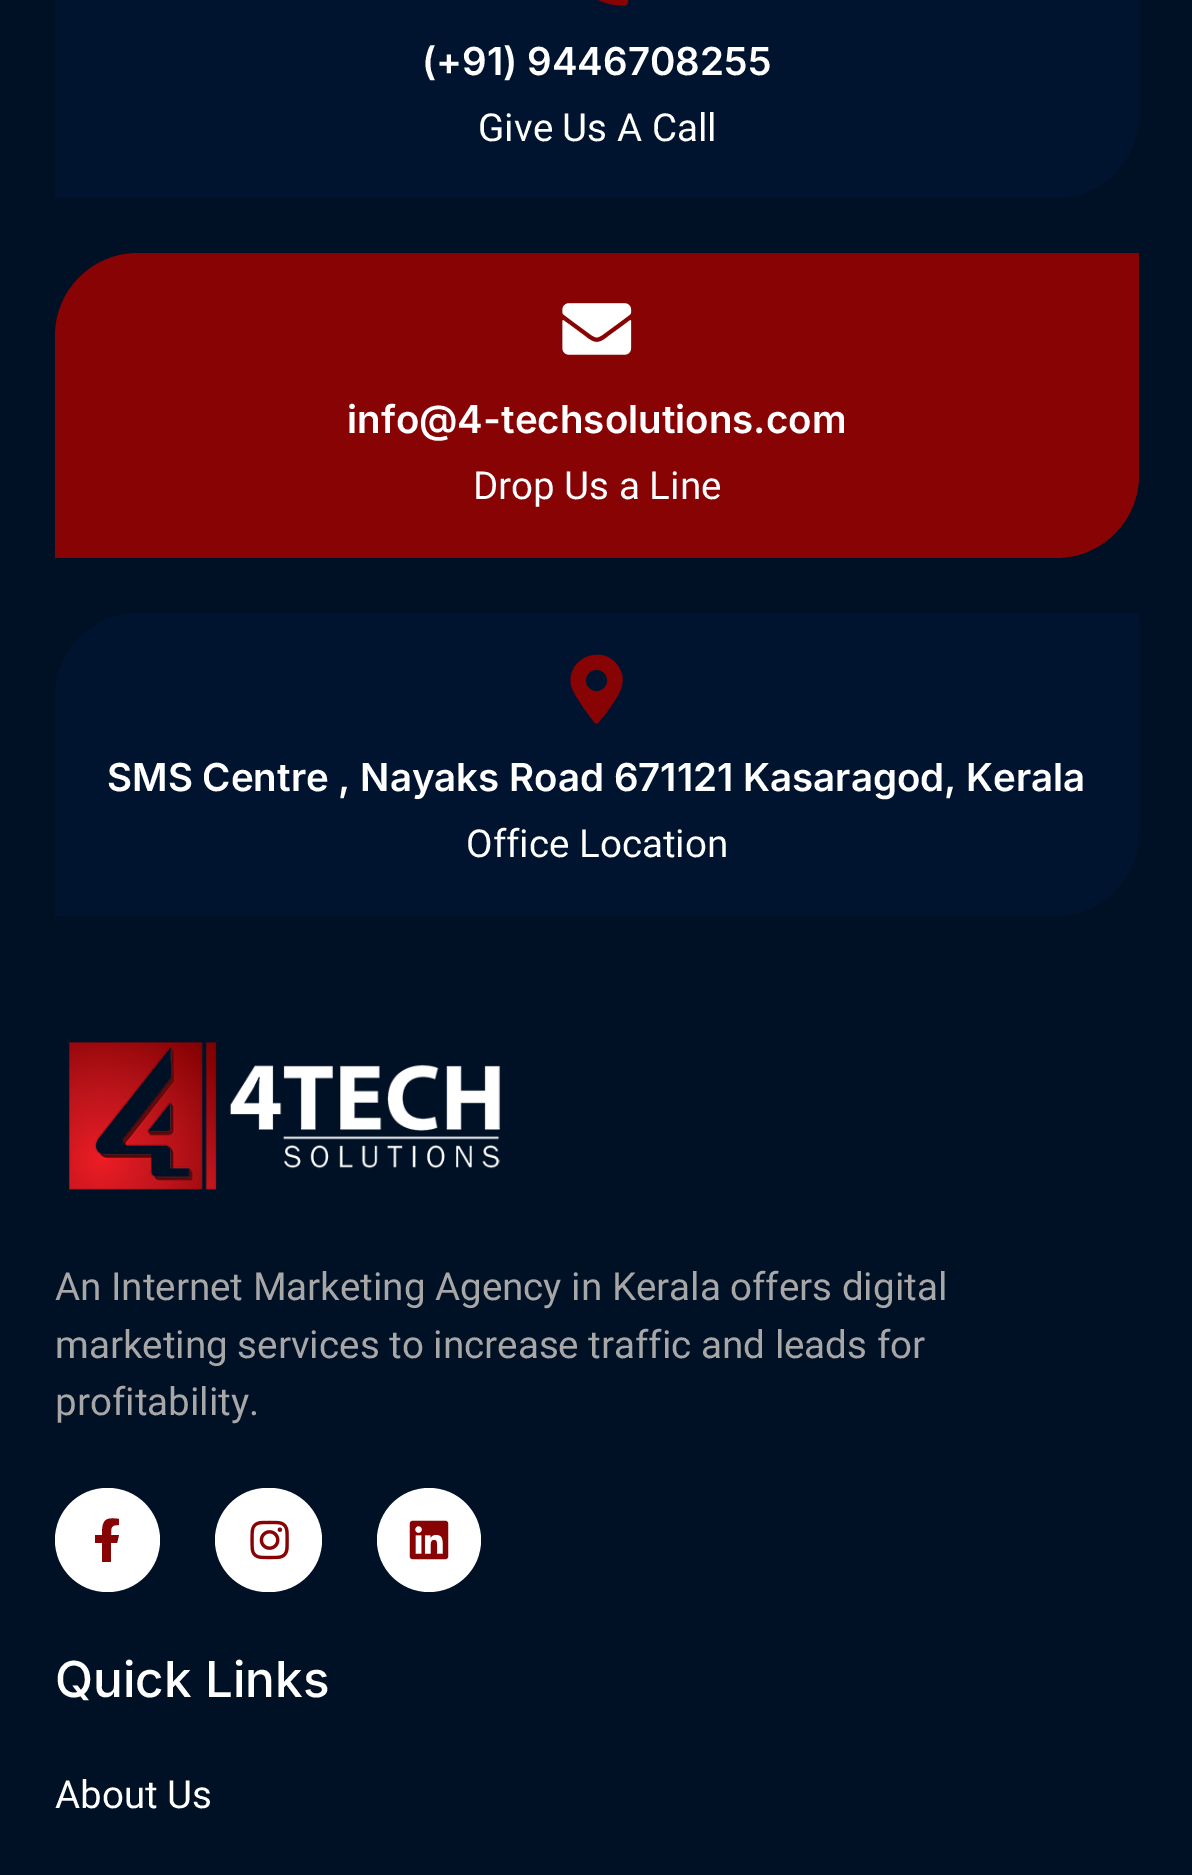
%!PS
<< /PageSize [1192 1875] >> setpagedevice
/m/moveto load def
/l/rlineto load def
/c/rcurveto load def
/z/closepath load def
/f/fill load def
/C { dup -16 bitshift 255 div exch dup -8 bitshift 255 and 255 div exch 255 and 255 div setrgbcolor } def
/F { [ exch dup neg 0 0 3 -1 roll 0 0 ] selectfont } def
/T { moveto show } def
/R { rectfill } def
/O { newpath 0 360 arc closepath } def
/Q { 5 dict begin { /r /h /w /y /x } { exch def } forall
  x r add y moveto x w add y 2 copy h add r arct x w add y h add x 1 index r arct
  x y h add x y r arct x y 2 copy exch w add exch r arct closepath end } def
/I { 5 dict begin { /h /w /y /x /name } { exch def } forall
  gsave x y translate w h scale
  w h 8 [w 0 0 h 0 0] name (r) file false 3 colorimage grestore end } def
0 1875 translate 1 -1 scale
4 setmiterlimit
16#001025 C
0 0 1192 1875 R
16#00142F C
138 -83 m 1001 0 l 0 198 l 0 46 -37 83 -83 83 c -1001 0 l 0 -198 l 0 -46 37 -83 83 -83 c z f
(1.rgb) 598 0 31 6 I
/Inter-SemiBold 38.5 F
16#FFFFFF C
(\(+91\) 9446708255) 422 75 T
/Heebo-Regular 38.5 F
(Give Us A Call) 478 141 T
16#880303 C
138 253 m 1001 0 l 0 222 l 0 46 -37 83 -83 83 c -1001 0 l 0 -222 l 0 -46 37 -83 83 -83 c z f
(2.rgb) 562 303 70 52 I
/Inter-SemiBold 38.5 F
16#FFFFFF C
(info@4-techsolutions.com) 347 433 T
/Heebo-Regular 38.5 F
(Drop Us a Line) 473 499 T
16#00142F C
138 613 m 1001 0 l 0 220 l 0 46 -37 83 -83 83 c -1001 0 l 0 -220 l 0 -46 37 -83 83 -83 c z f
16#880303 C
594 722 m -11 -15 l -4 -7 -10 -14 -12 -22 c -5 -27 32 -42 47 -19 c 12 17 -2 32 -11 46 c -9 11 l -1 1 -3 1 -4 -1 c z 589 688 m 10 10 25 -5 15 -15 c -10 -10 -25 5 -15 15 c z f
/Inter-SemiBold 38.5 F
16#FFFFFF C
(SMS Centre , Nayaks Road 671121 Kasaragod, Kerala) 107 791 T
/Heebo-Regular 38.5 F
(Office Location) 466 857 T
(3.rgb) 69 1042 432 148 I
16#A7A7A7 C
(An Internet Marketing Agency in Kerala offers digital) 55 1300 T
(marketing services to increase traffic and leads for) 55 1358 T
(profitability.) 55 1415 T
16#FFFFFF C
55 1488 105 104 52 Q f
16#880303 C
117 1543 m -6 0 l 0 19 l -9 0 l 0 -19 l -7 0 l 0 -8 l 7 0 l 0 -15 3 -18 17 -16 c 0 6 l -8 0 -8 2 -8 10 c 8 0 l z f
16#FFFFFF C
215 1488 107 104 52 Q f
(4.rgb) 250 1520 39 40 I
429 1540 52 O f
(5.rgb) 409 1520 40 40 I
/Inter-Medium 49.5 F
(Quick Links) 55 1697 T
/Heebo-Regular 38.5 F
(About Us) 55 1808 T
showpage
